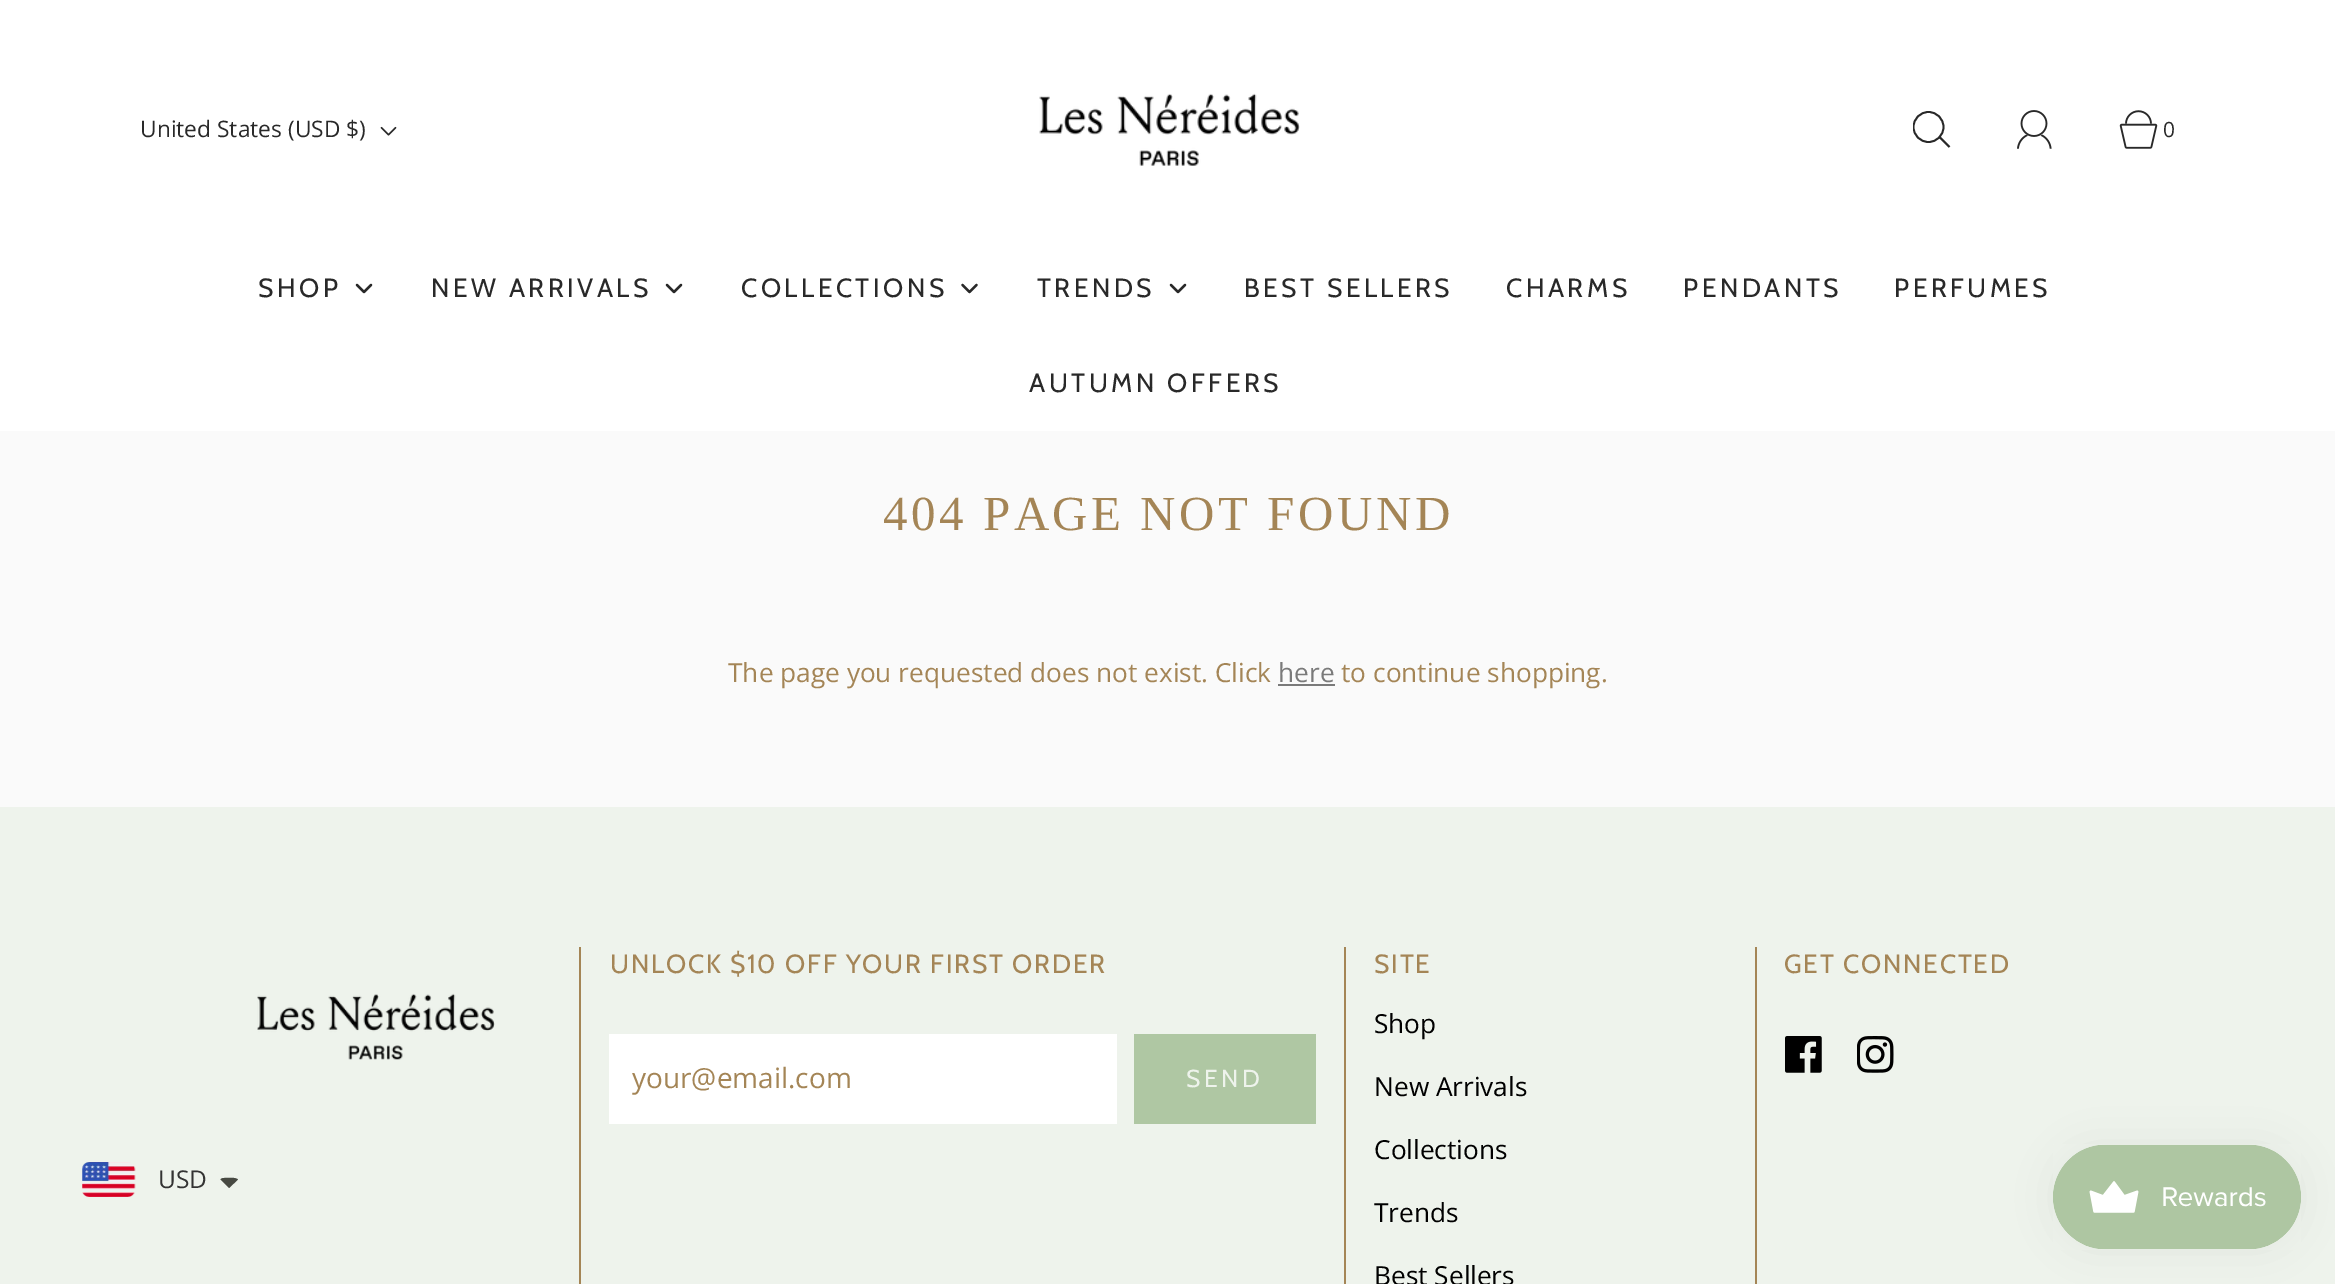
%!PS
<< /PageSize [2335 1284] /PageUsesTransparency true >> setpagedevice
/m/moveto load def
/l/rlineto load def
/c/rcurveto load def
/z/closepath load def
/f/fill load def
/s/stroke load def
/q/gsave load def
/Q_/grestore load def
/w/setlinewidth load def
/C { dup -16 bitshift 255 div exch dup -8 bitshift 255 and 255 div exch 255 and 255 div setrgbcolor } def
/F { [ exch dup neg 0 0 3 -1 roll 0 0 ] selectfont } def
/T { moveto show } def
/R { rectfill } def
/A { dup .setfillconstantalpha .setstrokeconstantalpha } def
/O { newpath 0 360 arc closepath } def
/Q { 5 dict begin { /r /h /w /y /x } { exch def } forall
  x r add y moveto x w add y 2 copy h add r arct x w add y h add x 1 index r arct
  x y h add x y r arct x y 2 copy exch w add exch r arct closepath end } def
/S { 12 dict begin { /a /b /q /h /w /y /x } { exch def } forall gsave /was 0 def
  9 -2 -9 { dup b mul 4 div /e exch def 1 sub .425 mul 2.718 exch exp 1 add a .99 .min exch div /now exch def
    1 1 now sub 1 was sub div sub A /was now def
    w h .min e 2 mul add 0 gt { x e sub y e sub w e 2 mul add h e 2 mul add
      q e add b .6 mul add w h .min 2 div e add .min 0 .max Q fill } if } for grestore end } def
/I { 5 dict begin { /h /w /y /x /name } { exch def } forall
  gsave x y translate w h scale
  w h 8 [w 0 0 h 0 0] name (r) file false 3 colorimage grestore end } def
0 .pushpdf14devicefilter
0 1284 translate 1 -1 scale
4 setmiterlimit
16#FAFAFA C
0 0 2335 1284 R
16#FFFFFF C
0 0 2335 431 R
/OpenSans-Regular 22.75 F
16#292929 C
(United States \(USD $\)) 140 137 T
(1.rgb) 380 126 17 10 I
(2.rgb) 1039 93 261 73 I
q
1913 110 38 39 rectclip
1.8 w
1928.5 127 15 O s
Q_
1.8 w
1939 136.5 m 10.5 10.5 l s
(3.rgb) 2017 110 35 39 I
(4.rgb) 2119 110 39 39 I
/OpenSans-Regular 21 F
(0) 2163 137 T
/Cabin-Regular 26.25 F
258 297 m 3.5 0 (SHOP) ashow
2.3 w
1 setlinecap
1 setlinejoin
357 285 m 7 7 l 7 -7 l s
431 297 m 3.5 0 (NEW ARRIVALS) ashow
667 285 m 7 7 l 7 -7 l s
741 297 m 3.5 0 (COLLECTIONS) ashow
962.5 285 m 7 7 l 7 -7 l s
1037 297 m 3.5 0 (TRENDS) ashow
1171 285 m 7 7 l 7 -7 l s
1244 297 m 3.5 0 (BEST SELLERS) ashow
1506 297 m 3.5 0 (CHARMS) ashow
1683 297 m 3.5 0 (PENDANTS) ashow
1894 297 m 3.5 0 (PERFUMES) ashow
1029 392 m 3.5 0 (AUTUMN OFFERS) ashow
/LiberationSerif-Regular 49 F
16#A48556 C
883 530 m 3.5 0 (404 PAGE NOT FOUND) ashow
/OpenSans-Regular 26.25 F
(The page you requested does not exist. Click) 728 682 T
16#7A7A7A C
(here) 1278 682 T
1278 684 57 2 R
16#A48556 C
(to continue shopping.) 1341 682 T
16#EEF3EC C
0 807 2335 477 R
16#A48556 C
579 947 2 337 R
(5.rgb) 257 993 238 67 I
1344 947 2 337 R
/Cabin-Regular 26.25 F
610 973 m 1.75 0 (UNLOCK $10 OFF YOUR FIRST ORDER) ashow
16#FFFFFF C
609 1034 508 90 R
/OpenSans-Regular 28 F
16#A48556 C
(your@email.com) 632 1088 T
16#AFC7A3 C
1134 1034 182 90 R
/Cabin-Regular 24.5 F
16#EEF3EC C
1186 1087 m 3.5 0 (SEND) ashow
16#A48556 C
1755 947 2 337 R
/Cabin-Regular 26.25 F
1374 973 m 1.75 0 (SITE) ashow
/OpenSans-Regular 26.25 F
16#000000 C
(Shop) 1374 1033 T
(New Arrivals) 1374 1096 T
(Collections) 1374 1159 T
(Trends) 1374 1222 T
(Best Sellers) 1374 1285 T
/Cabin-Regular 26.25 F
16#A48556 C
1784 973 m 1.75 0 (GET CONNECTED) ashow
(6.rgb) 1785 1036 37 37 I
(7.rgb) 1857 1036 37 37 I
(8.rgb) 82 1162 54 35 I
/OpenSans-Regular 24.5 F
16#333333 C
(USD) 158 1188 T
16#474942 C
224 1178 m 3.5 0 11.5 -1 14 1.5 c -9 8.5 l -8.5 -8.5 l .5 -1 2 -1.5 3.5 -1.5 c z f
16#000000 C
2053 1145 248 105 52.5 22 .05 S
(9.rgb) 2053 1144 248 106 I
.poppdf14devicefilter showpage
